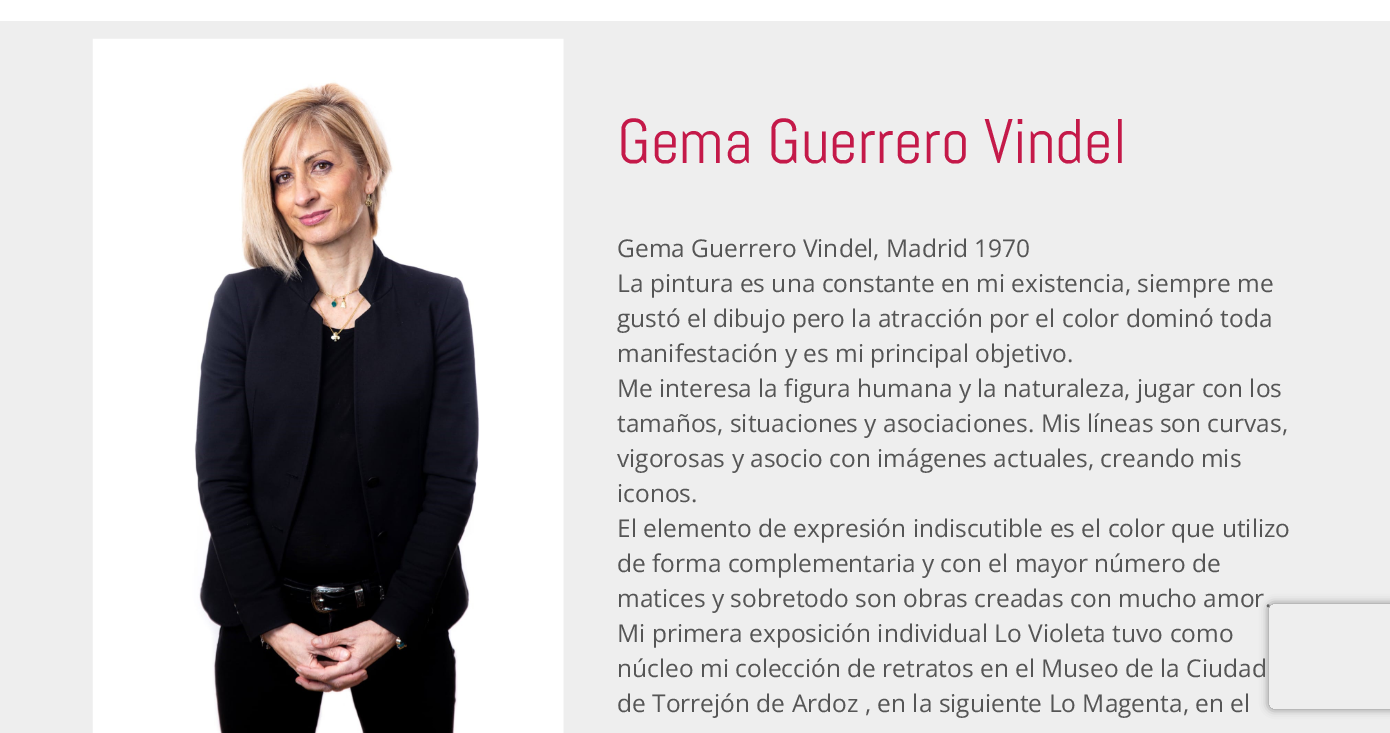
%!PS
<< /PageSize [1390 733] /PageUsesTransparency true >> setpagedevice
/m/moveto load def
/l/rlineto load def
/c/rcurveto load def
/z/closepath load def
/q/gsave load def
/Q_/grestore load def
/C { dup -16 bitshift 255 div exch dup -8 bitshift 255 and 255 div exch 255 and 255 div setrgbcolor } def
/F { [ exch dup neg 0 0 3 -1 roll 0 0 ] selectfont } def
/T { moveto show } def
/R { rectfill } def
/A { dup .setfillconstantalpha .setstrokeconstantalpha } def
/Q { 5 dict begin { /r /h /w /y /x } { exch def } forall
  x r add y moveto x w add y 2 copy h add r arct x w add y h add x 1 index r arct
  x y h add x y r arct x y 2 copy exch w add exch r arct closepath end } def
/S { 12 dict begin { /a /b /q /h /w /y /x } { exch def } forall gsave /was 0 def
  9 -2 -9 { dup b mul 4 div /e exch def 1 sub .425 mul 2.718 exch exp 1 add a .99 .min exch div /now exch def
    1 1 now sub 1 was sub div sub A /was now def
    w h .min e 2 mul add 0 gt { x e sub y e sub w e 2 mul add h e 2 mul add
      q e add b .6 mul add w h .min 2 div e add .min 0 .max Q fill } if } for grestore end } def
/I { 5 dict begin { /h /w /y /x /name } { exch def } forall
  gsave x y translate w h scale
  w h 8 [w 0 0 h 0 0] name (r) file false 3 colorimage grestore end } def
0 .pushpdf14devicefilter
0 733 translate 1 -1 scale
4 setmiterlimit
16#EEEEEE C
0 0 1390 733 R
16#FFFFFF C
0 0 1390 21 R
(1.rgb) 92 38 472 695 I
/Abel-Regular 63 F
16#C41949 C
(Gema Guerrero Vindel) 617 163 T
/OpenSans-Regular 24.5 F
16#555555 C
(Gema Guerrero Vindel, Madrid 1970) 617 257 T
(La pintura es una constante en mi existencia, siempre me) 617 292 T
(gustó el dibujo pero la atracción por el color dominó toda) 617 327 T
(manifestación y es mi principal objetivo.) 617 362 T
(Me interesa la figura humana y la naturaleza, jugar con los) 617 397 T
(tamaños, situaciones y asociaciones. Mis líneas son curvas,) 617 432 T
(vigorosas y asocio con imágenes actuales, creando mis) 617 467 T
(iconos.) 617 502 T
(El elemento de expresión indiscutible es el color que utilizo) 617 537 T
(de forma complementaria y con el mayor número de) 617 572 T
(matices y sobretodo son obras creadas con mucho amor.) 617 607 T
(Mi primera exposición individual Lo Violeta tuvo como) 617 642 T
(núcleo mi colección de retratos en el Museo de la Ciudad) 617 677 T
(de Torrejón de Ardoz , en la siguiente Lo Magenta, en el) 617 712 T
q
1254 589 m 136 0 l 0 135 l -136 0 l z 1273 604 m 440 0 l 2 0 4 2 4 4 c 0 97 l 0 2 -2 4 -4 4 c -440 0 l -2 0 -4 -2 -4 -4 c 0 -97 l 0 -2 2 -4 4 -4 c z eoclip newpath
16#808080 C
1269 604 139 105 4 4.5 1 S
Q_
.poppdf14devicefilter showpage
